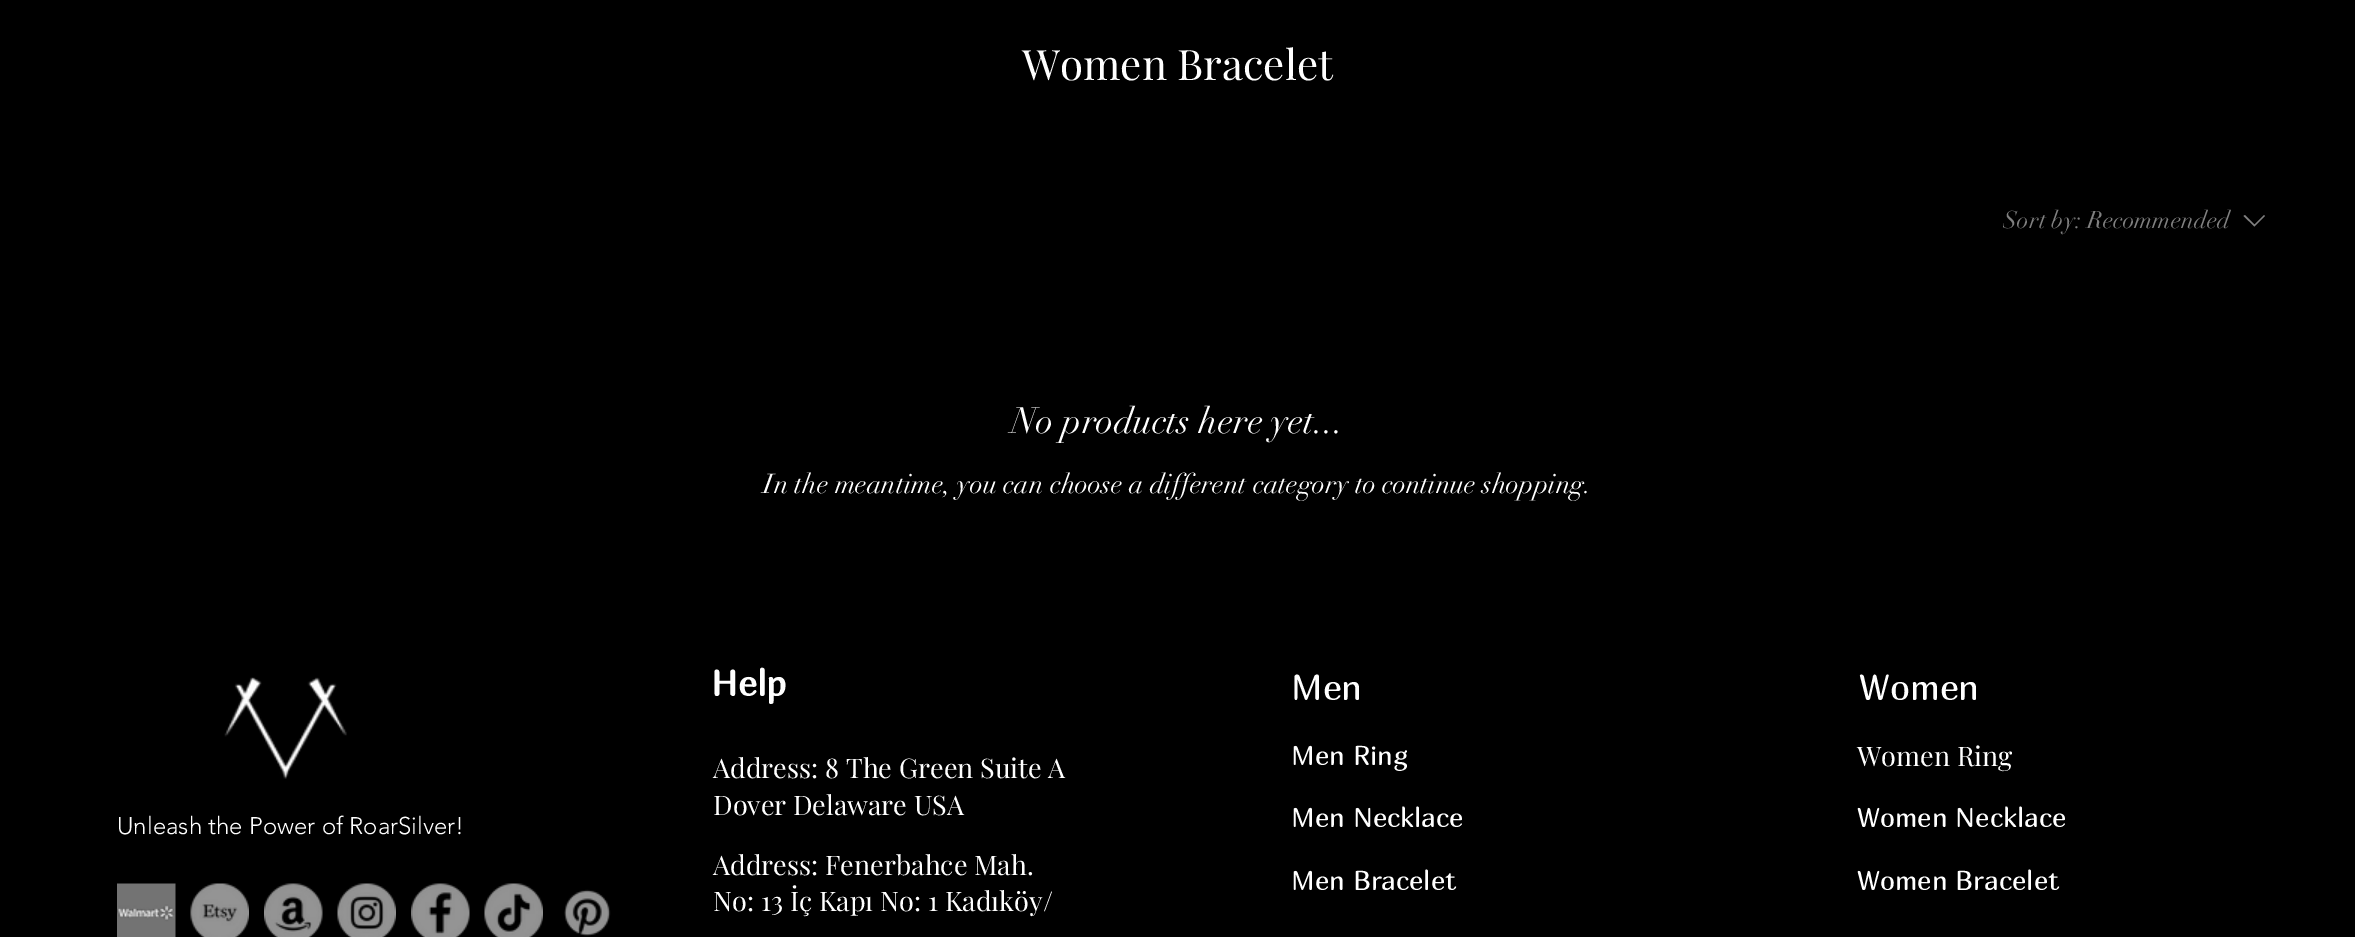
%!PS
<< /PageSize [2355 937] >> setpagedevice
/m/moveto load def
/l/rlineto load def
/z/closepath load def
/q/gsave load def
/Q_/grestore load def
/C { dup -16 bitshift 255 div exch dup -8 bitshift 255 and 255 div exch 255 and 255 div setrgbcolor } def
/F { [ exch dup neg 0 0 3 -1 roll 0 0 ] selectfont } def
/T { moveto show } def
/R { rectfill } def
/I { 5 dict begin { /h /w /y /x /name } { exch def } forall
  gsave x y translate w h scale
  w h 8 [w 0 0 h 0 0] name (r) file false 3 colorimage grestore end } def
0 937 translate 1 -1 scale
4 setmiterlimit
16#000000 C
0 0 2355 937 R
/PlayfairDisplay-Regular 42 F
16#FFFFFF C
(Women Bracelet) 1022 80 T
q
2003 204 228 35 rectclip
/didot-Regular 24 F
16#808080 C
(Sort by:) 2003 228 T
Q_
/didot-Regular 24 F
16#808080 C
(Recommended) 2087 228 T
2264 215 m 1 1 l -10.5 10.5 l -11 -10.5 l 1.5 -1 l 9.5 9.5 l z eofill
/didot-Regular 36 F
16#FFFFFF C
(No products here yet...) 1011 433 T
/didot-Regular 27 F
(In the meantime, you can choose a different category to continue shopping.) 763 493 T
(1.rgb) 224 677 123 102 I
/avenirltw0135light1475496-Light 24 F
(Unleash the Power of RoarSilver!) 117 834 T
(2.rgb) 117 883 59 54 I
(3.rgb) 190 883 59 54 I
(4.rgb) 264 883 59 54 I
(5.rgb) 337 883 59 54 I
(6.rgb) 411 883 59 54 I
(7.rgb) 484 883 59 54 I
(8.rgb) 564 889 47 48 I
/Marmelad-Bold 36 F
(Help) 711 696 T
/PlayfairDisplay-Regular 27 F
(Address: 8 The Green Suite A) 713 778 T
(Dover Delaware USA) 713 815 T
(Address: Fenerbahce Mah.) 713 875 T
(No: 13 İç Kapı No: 1 Kadıköy/) 713 911 T
/Marmelad-Regular 36 F
(Men) 1291 700 T
/Marmelad-Regular 27 F
(Men Ring) 1291 765 T
(Men Necklace) 1291 827 T
(Men Bracelet) 1291 890 T
/Marmelad-Regular 36 F
(Women) 1859 700 T
/PlayfairDisplay-Regular 27 F
(Women Ring) 1857 766 T
/Marmelad-Regular 27 F
(Women Necklace) 1857 827 T
(Women Bracelet) 1857 890 T
showpage
